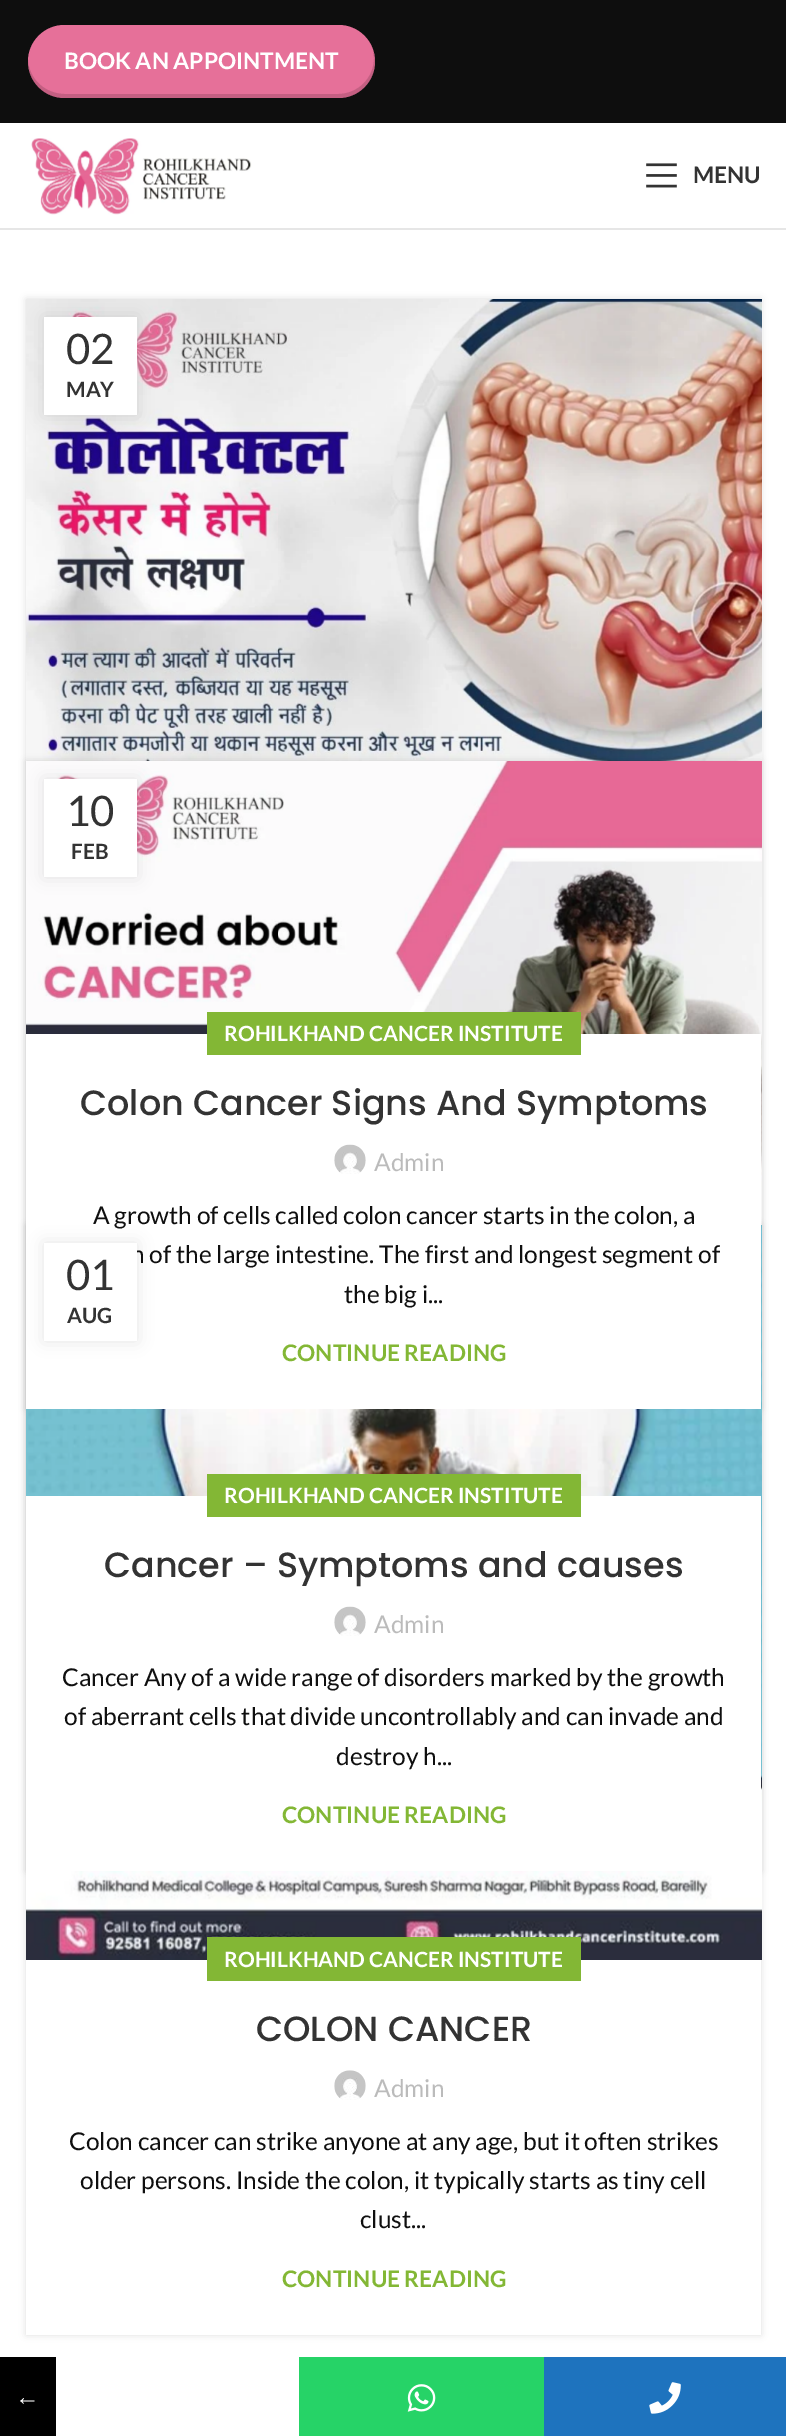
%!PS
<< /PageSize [786 2436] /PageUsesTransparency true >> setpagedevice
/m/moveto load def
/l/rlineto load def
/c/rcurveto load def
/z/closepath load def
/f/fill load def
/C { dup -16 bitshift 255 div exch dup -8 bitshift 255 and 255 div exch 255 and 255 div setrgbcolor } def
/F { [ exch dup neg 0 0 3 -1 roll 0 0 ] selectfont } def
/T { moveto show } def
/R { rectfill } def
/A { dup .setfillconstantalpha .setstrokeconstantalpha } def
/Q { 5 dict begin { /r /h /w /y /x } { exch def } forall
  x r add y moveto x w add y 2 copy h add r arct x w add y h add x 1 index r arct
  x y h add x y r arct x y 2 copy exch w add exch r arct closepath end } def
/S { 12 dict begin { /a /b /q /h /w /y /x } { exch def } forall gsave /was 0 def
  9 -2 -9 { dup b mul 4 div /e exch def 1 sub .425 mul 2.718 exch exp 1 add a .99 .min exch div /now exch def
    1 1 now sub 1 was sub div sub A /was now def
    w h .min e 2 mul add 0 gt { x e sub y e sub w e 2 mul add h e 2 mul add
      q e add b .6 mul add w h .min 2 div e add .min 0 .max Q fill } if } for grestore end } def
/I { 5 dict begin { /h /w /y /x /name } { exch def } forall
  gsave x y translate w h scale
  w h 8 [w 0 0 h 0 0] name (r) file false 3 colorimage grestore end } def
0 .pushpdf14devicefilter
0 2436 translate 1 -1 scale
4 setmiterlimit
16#FFFFFF C
0 0 786 2436 R
16#0E0E0E C
0 0 786 123 R
16#E67099 C
28 25 347 73 36.5 Q f
0.15 A
16#000000 C
28 60 m 0 2 l 0 20 16 36 36 36 c 274 0 l 21 0 37 -16 37 -36 c 0 -4 -1 -8 -2 -12 c 1 8 l 0 20 -16 36 -36 36 c -273 0 l -20 0 -36 -15 -37 -34 c z f
/Lato-Bold 22.75 F
1 A
16#FFFFFF C
(BOOK AN APPOINTMENT) 64 69 T
16#E6E6E6 C
0 228 786 2 R
(1.rgb) 31 138 221 77 I
(2.rgb) 646 163 31 25 I
16#333333 C
(MENU) 693 183 T
16#000000 C
26 299 735 1110 0 3.5 .12 S
(3.rgb) 26 299 736 462 I
44 317 93 98 0 8 .1 S
16#FFFFFF C
44 317 93 98 R
/Lato-Regular 42 F
16#333333 C
(02) 66 364 T
/Lato-Bold 21 F
(MAY) 66 397 T
16#000000 C
26 761 735 1110 0 3.5 .12 S
(5.rgb) 26 761 736 464 I
26 1225 735 1110 0 3.5 .12 S
(6.rgb) 26 1225 736 735 I
16#FFFFFF C
26 1034 735 375 R
16#83B735 C
207 1012 374 43 R
16#FFFFFF C
(ROHILKHAND CANCER INSTITUTE) 224 1041 T
/Poppins-Medium 35 F
16#333333 C
(Colon Cancer Signs And Symptoms) 80 1115 T
(4.rgb) 334 1144 32 30 I
/Lato-Regular 24.5 F
16#BBBBBB C
(Admin) 374 1171 T
16#0F0F0F C
(A growth of cells called colon cancer starts in the colon, a) 93 1224 T
(n of the large intestine. The first and longest segment of) 131 1263 T
(the big i...) 344 1303 T
/Lato-Bold 22.75 F
16#83B735 C
(CONTINUE READING) 282 1361 T
16#000000 C
44 779 93 98 0 8 .1 S
16#FFFFFF C
44 779 93 98 R
/Lato-Regular 42 F
16#333333 C
(10) 66 826 T
/Lato-Bold 21 F
(FEB) 71 859 T
16#FFFFFF C
26 1496 735 375 R
16#83B735 C
207 1474 374 43 R
16#FFFFFF C
(ROHILKHAND CANCER INSTITUTE) 224 1503 T
/Poppins-Medium 35 F
16#333333 C
(Cancer – Symptoms and causes) 104 1577 T
(4.rgb) 334 1606 32 30 I
/Lato-Regular 24.5 F
16#BBBBBB C
(Admin) 374 1633 T
16#0F0F0F C
(Cancer Any of a wide range of disorders marked by the growth) 62 1686 T
(of aberrant cells that divide uncontrollably and can invade and) 64 1725 T
(destroy h...) 336 1765 T
/Lato-Bold 22.75 F
16#83B735 C
(CONTINUE READING) 282 1823 T
16#000000 C
44 1243 93 98 0 8 .1 S
16#FFFFFF C
44 1243 93 98 R
/Lato-Regular 42 F
16#333333 C
(01) 66 1290 T
/Lato-Bold 21 F
(AUG) 67 1323 T
16#FFFFFF C
26 1960 735 375 R
16#83B735 C
207 1937 374 44 R
16#FFFFFF C
(ROHILKHAND CANCER INSTITUTE) 224 1967 T
/Poppins-Medium 35 F
16#333333 C
(COLON CANCER) 256 2041 T
(7.rgb) 334 2070 32 30 I
/Lato-Regular 24.5 F
16#BBBBBB C
(Admin) 374 2097 T
16#0F0F0F C
(Colon cancer can strike anyone at any age, but it often strikes) 69 2150 T
(older persons. Inside the colon, it typically starts as tiny cell) 80 2189 T
(clust...) 360 2228 T
/Lato-Bold 22.75 F
16#83B735 C
(CONTINUE READING) 282 2287 T
16#000000 C
0 2357 56 79 R
/LiberationSerif-Regular 24.5 F
16#FFFFFF C
(←) 15 2405 T
16#26D367 C
299 2357 245 79 R
(8.rgb) 407 2384 29 28 I
16#1E73BE C
544 2357 242 79 R
(9.rgb) 649 2382 32 32 I
.poppdf14devicefilter showpage
